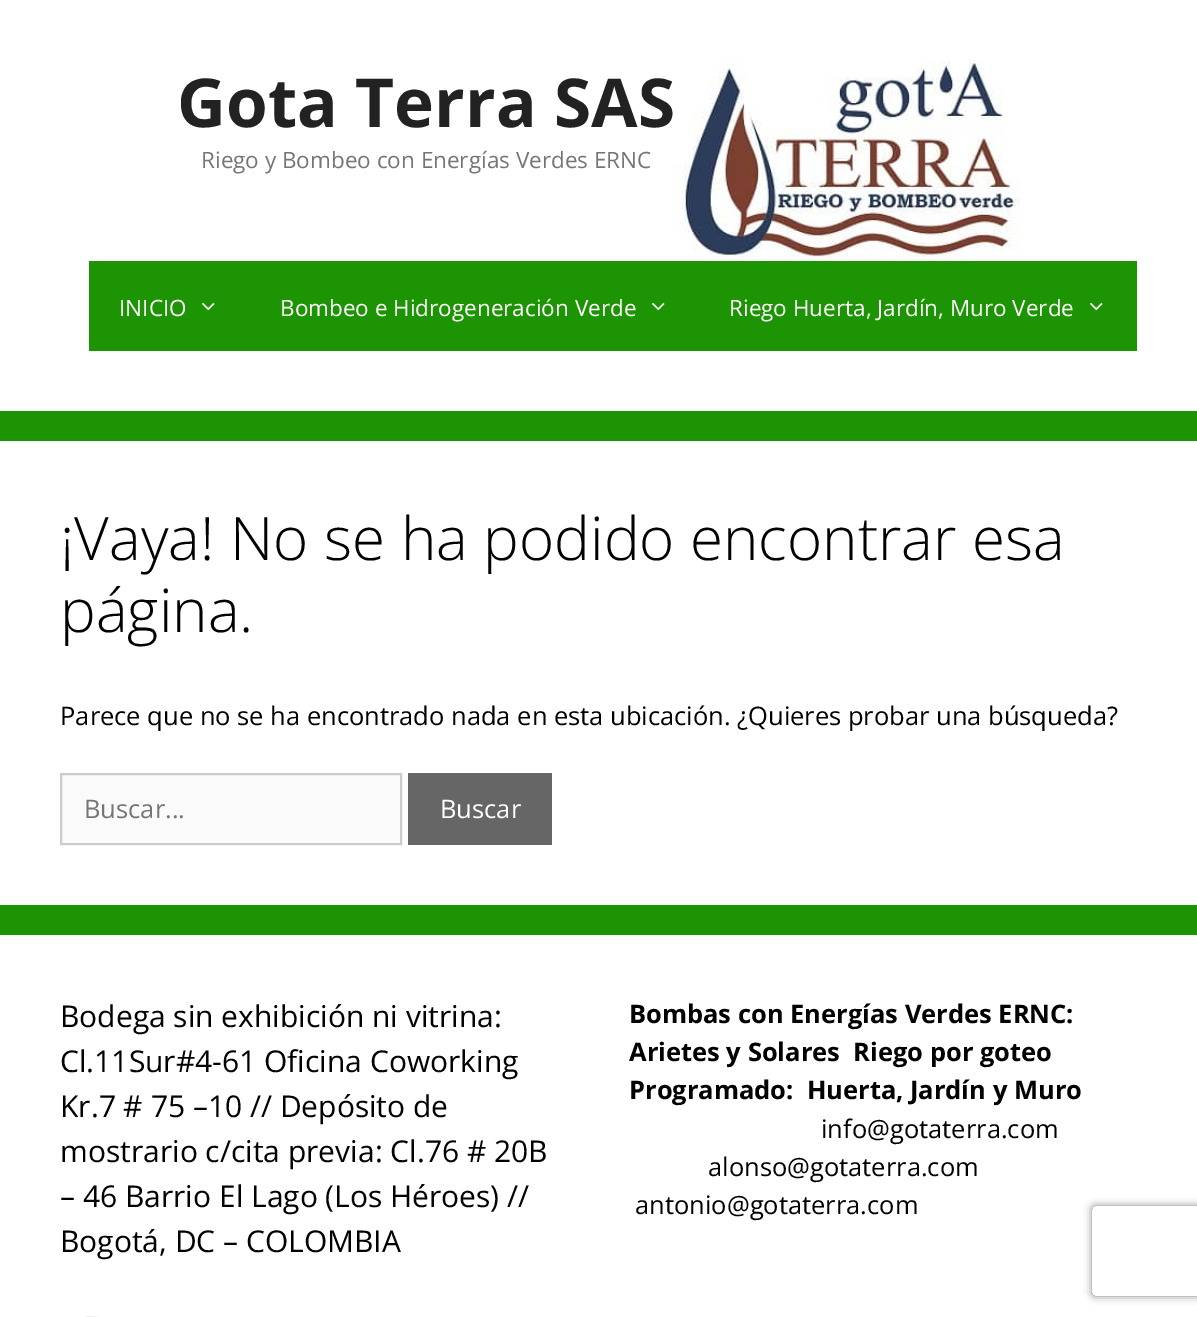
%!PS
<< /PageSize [1197 1317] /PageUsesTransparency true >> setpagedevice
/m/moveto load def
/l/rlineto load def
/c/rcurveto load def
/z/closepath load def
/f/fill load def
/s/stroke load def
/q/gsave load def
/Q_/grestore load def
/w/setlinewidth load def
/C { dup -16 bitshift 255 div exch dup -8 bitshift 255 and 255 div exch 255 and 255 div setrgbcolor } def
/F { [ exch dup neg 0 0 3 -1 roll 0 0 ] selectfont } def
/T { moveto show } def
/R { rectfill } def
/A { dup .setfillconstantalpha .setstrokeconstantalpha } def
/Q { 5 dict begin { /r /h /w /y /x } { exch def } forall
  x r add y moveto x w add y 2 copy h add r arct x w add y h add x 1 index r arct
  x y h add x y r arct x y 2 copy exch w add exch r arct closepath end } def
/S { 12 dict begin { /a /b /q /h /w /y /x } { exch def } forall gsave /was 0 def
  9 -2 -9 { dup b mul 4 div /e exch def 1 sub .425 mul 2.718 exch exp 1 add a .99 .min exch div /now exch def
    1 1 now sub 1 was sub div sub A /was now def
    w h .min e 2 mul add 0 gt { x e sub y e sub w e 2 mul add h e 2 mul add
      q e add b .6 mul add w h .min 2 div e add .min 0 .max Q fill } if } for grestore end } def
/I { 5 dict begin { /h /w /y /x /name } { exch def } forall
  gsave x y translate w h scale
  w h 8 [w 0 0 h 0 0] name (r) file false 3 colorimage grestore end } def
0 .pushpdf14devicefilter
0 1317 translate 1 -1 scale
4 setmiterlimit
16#1D9403 C
0 0 1197 1317 R
16#FFFFFF C
0 0 1197 411 R
/OpenSans-Bold 67.5 F
16#222222 C
(Gota Terra SAS) 177 127 T
/OpenSans-Regular 22.5 F
16#757575 C
(Riego y Bombeo con Energías Verdes ERNC) 201 168 T
(1.rgb) 675 60 345 201 I
16#1D9403 C
89 261 1048 90 R
16#FFFFFF C
(INICIO) 119 316 T
(2.rgb) 202 303 13 8 I
(Bombeo e Hidrogeneración Verde) 280 316 T
(2.rgb) 652 303 13 8 I
(Riego Huerta, Jardín, Muro Verde) 729 316 T
(2.rgb) 1090 303 13 8 I
0 441 1197 464 R
/OpenSans-Light 60 F
16#000000 C
(¡Vaya! No se ha podido encontrar esa) 60 560 T
(página.) 60 632 T
/OpenSans-Regular 25.5 F
(Parece que no se ha encontrado nada en esta ubicación. ¿Quieres probar una búsqueda?) 60 725 T
16#FAFAFA C
61 774 m 340 0 l 0 70 l -340 0 l z q f Q_
16#CCCCCC C
2 w
s
16#757575 C
(Buscar...) 84 818 T
16#666666 C
408 773 144 72 R
16#FFFFFF C
(Buscar) 440 818 T
0 935 1197 382 R
/OpenSans-Regular 30 F
16#000000 C
(Bodega sin exhibición ni vitrina:) 60 1027 T
(Cl.11Sur#4-61 Oficina Coworking) 60 1072 T
(Kr.7 # 75 –10 // Depósito de) 60 1117 T
(mostrario c/cita previa: Cl.76 # 20B) 60 1162 T
(– 46 Barrio El Lago \(Los Héroes\) //) 60 1207 T
(Bogotá, DC – COLOMBIA) 60 1252 T
(3.rgb) 85 1316 13 1 I
/OpenSans-Bold 25.5 F
(Bombas con Energías Verdes ERNC:) 629 1023 T
(Arietes y Solares  Riego por goteo) 629 1061 T
(Programado:  Huerta, Jardín y Muro) 629 1099 T
/OpenSans-Regular 25.5 F
(info@gotaterra.com) 821 1138 T
(alonso@gotaterra.com) 708 1176 T
(antonio@gotaterra.com) 635 1214 T
q
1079 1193 m 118 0 l 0 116 l -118 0 l z 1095 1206 m 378 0 l 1.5 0 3 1.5 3 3 c 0 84 l 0 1.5 -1.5 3 -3 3 c -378 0 l -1.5 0 -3 -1.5 -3 -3 c 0 -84 l 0 -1.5 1.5 -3 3 -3 c z eoclip newpath
16#808080 C
1092 1206 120 90 3 4 1 S
Q_
.poppdf14devicefilter showpage
